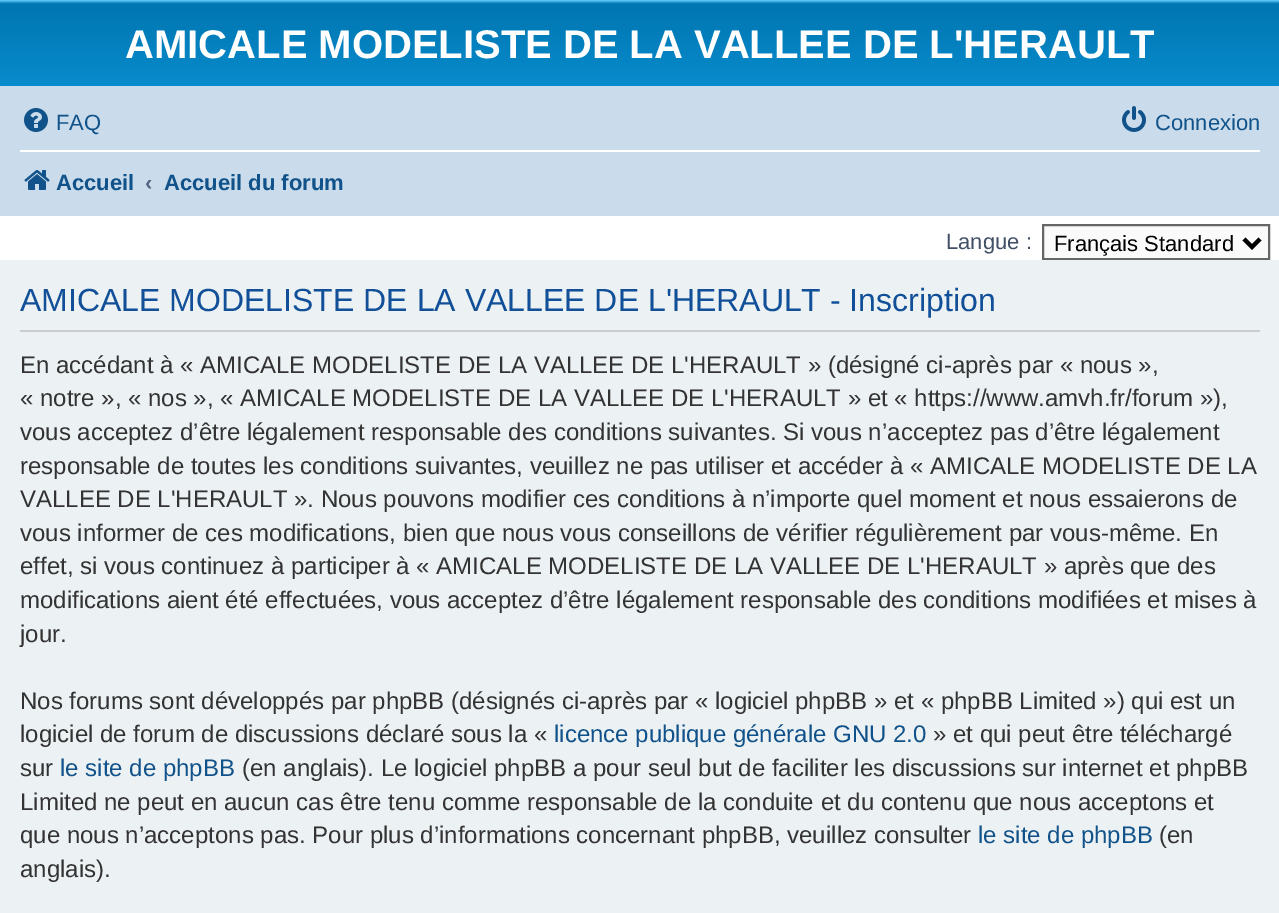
%!PS
<< /PageSize [1279 913] >> setpagedevice
/m/moveto load def
/l/rlineto load def
/z/closepath load def
/f/fill load def
/s/stroke load def
/q/gsave load def
/Q_/grestore load def
/w/setlinewidth load def
/C { dup -16 bitshift 255 div exch dup -8 bitshift 255 and 255 div exch 255 and 255 div setrgbcolor } def
/F { [ exch dup neg 0 0 3 -1 roll 0 0 ] selectfont } def
/T { moveto show } def
/R { rectfill } def
/I { 5 dict begin { /h /w /y /x /name } { exch def } forall
  gsave x y translate w h scale
  w h 8 [w 0 0 h 0 0] name (r) file false 3 colorimage grestore end } def
0 913 translate 1 -1 scale
4 setmiterlimit
16#FFFFFF C
0 0 1279 913 R
q 0 0 m 1279 0 l 0 86 l -1279 0 l z clip newpath
<< /ShadingType 2 /ColorSpace /DeviceRGB /Coords [640 0 640 184] /Extend [true true] /Function << /FunctionType 3 /Domain [0 1] /Functions [<< /FunctionType 2 /Domain [0 1] /C0 [.416 .808 1] /C1 [0 .463 .694] /N 1 >> << /FunctionType 2 /Domain [0 1] /C0 [0 .463 .694] /C1 [.071 .639 .922] /N 1 >>] /Bounds [.02] /Encode [0 1 0 1] >> >> shfill Q_
/LiberationSans-Bold 40 F
(AMICALE MODELISTE DE LA VALLEE DE L'HERAULT) 125 58 T
16#CADCEB C
0 86 1279 130 R
(1.rgb) 24 108 24 24 I
/LiberationSans-Regular 22 F
16#105289 C
(FAQ) 56 130 T
(2.rgb) 1122 106 24 26 I
(Connexion) 1155 130 T
16#FFFFFF C
20 150 1240 2 R
(3.rgb) 24 170 26 20 I
/LiberationSans-Bold 22 F
16#105289 C
(Accueil) 56 190 T
16#536482 C
(‹) 145 190 T
16#105289 C
(Accueil du forum) 164 190 T
/LiberationSans-Regular 22 F
16#425067 C
(Langue :) 946 249 T
16#FAFAFA C
1043 225 m 226 0 l 0 34 l -226 0 l z q f Q_
16#666666 C
2 w
s
16#000000 C
4 w
1244 239 m 8 8 l 8 -8 l s
(Français Standard) 1054 251 T
16#ECF1F3 C
0 260 1279 653 R
16#CCCCCC C
20 330 1240 2 R
/LiberationSans-Regular 32 F
16#115098 C
(AMICALE MODELISTE DE LA VALLEE DE L'HERAULT - Inscription) 20 311 T
/LiberationSans-Regular 24 F
16#333333 C
(En accédant à « AMICALE MODELISTE DE LA VALLEE DE L'HERAULT » \(désigné ci-après par « nous »,) 20 373 T
(« notre », « nos », « AMICALE MODELISTE DE LA VALLEE DE L'HERAULT » et « https://www.amvh.fr/forum »\),) 20 406 T
(vous acceptez d’être légalement responsable des conditions suivantes. Si vous n’acceptez pas d’être légalement) 20 440 T
(responsable de toutes les conditions suivantes, veuillez ne pas utiliser et accéder à « AMICALE MODELISTE DE LA) 20 474 T
(VALLEE DE L'HERAULT ». Nous pouvons modifier ces conditions à n’importe quel moment et nous essaierons de) 20 507 T
(vous informer de ces modifications, bien que nous vous conseillons de vérifier régulièrement par vous-même. En) 20 541 T
(effet, si vous continuez à participer à « AMICALE MODELISTE DE LA VALLEE DE L'HERAULT » après que des) 20 574 T
(modifications aient été effectuées, vous acceptez d’être légalement responsable des conditions modifiées et mises à) 20 608 T
(jour.) 20 642 T
(Nos forums sont développés par phpBB \(désignés ci-après par « logiciel phpBB » et « phpBB Limited »\) qui est un) 20 709 T
(logiciel de forum de discussions déclaré sous la «) 20 742 T
16#105289 C
(licence publique générale GNU 2.0) 554 742 T
16#333333 C
(» et qui peut être téléchargé) 933 742 T
(sur) 20 776 T
16#105289 C
(le site de phpBB) 60 776 T
16#333333 C
(\(en anglais\). Le logiciel phpBB a pour seul but de faciliter les discussions sur internet et phpBB) 242 776 T
(Limited ne peut en aucun cas être tenu comme responsable de la conduite et du contenu que nous acceptons et) 20 810 T
(que nous n’acceptons pas. Pour plus d’informations concernant phpBB, veuillez consulter) 20 843 T
16#105289 C
(le site de phpBB) 978 843 T
16#333333 C
(\(en) 1159 843 T
(anglais\).) 20 877 T
showpage
